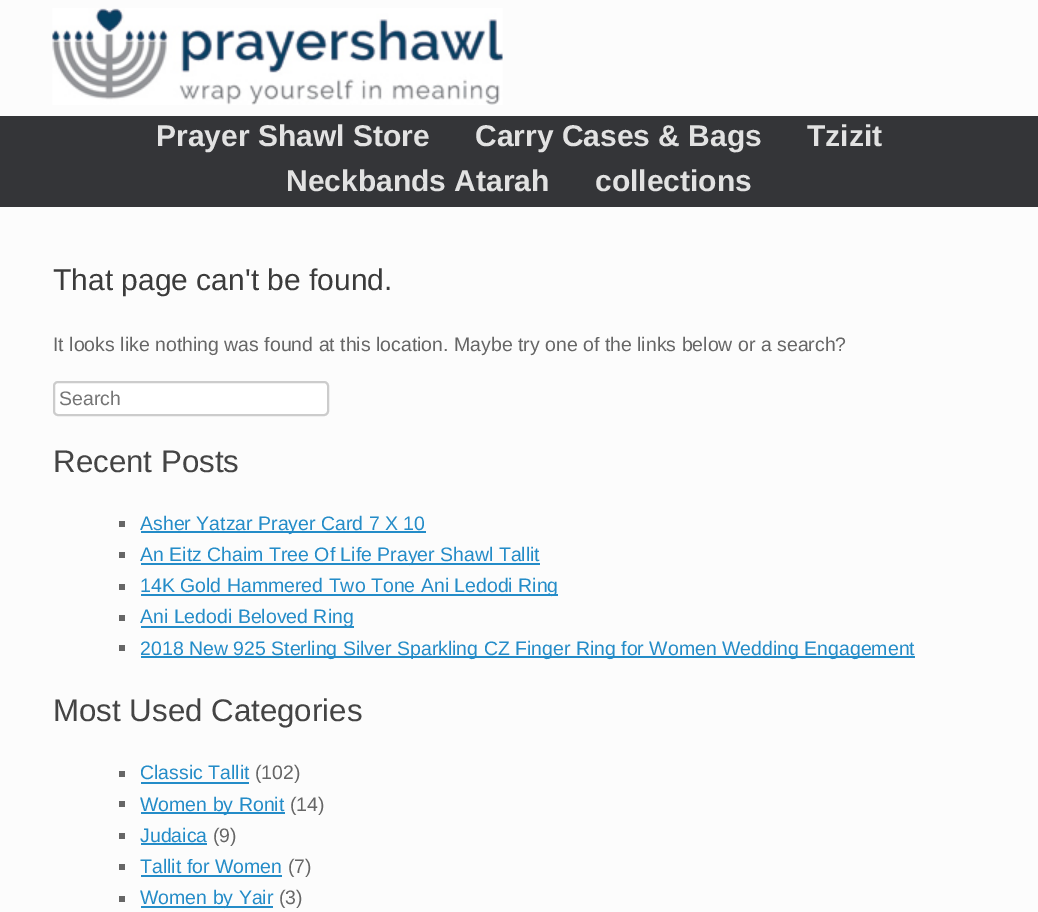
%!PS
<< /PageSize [1038 912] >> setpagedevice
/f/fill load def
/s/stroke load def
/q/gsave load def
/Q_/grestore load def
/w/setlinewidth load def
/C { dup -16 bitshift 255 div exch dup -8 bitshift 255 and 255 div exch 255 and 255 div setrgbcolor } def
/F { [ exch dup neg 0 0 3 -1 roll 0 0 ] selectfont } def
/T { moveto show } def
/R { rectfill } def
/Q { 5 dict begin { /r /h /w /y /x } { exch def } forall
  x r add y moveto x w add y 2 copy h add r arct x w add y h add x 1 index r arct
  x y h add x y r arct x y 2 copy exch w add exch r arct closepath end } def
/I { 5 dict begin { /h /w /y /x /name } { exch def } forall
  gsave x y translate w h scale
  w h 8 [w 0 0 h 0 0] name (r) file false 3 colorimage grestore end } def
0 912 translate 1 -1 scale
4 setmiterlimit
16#FCFCFC C
0 0 1038 912 R
(1.rgb) 52 8 451 97 I
16#343538 C
0 116 1038 91 R
/LiberationSans-Bold 30 F
16#E2E2E2 C
(Prayer Shawl Store) 156 146 T
(Carry Cases & Bags) 475 146 T
(Tzizit) 807 146 T
(Neckbands Atarah) 286 191 T
(collections) 595 191 T
/LiberationSans-Regular 30 F
16#3B3B3B C
(That page can't be found.) 53 290 T
/LiberationSans-Regular 19.5 F
16#666666 C
(It looks like nothing was found at this location. Maybe try one of the links below or a search?) 53 351 T
16#FFFFFF C
54 382 274 33 4 Q q f Q_
16#CCCCCC C
2 w
s
16#757575 C
(Search) 59 405 T
/LiberationSans-Regular 31.25 F
16#444444 C
(Recent Posts) 53 472 T
16#666666 C
119 521 6 6 R
16#248CC8 C
141 531 285 2 R
/LiberationSans-Regular 19.5 F
(Asher Yatzar Prayer Card 7 X 10) 140 530 T
16#666666 C
119 552 6 6 R
16#248CC8 C
141 563 399 2 R
(An Eitz Chaim Tree Of Life Prayer Shawl Tallit) 140 561 T
16#666666 C
119 584 6 6 R
16#248CC8 C
141 594 417 2 R
(14K Gold Hammered Two Tone Ani Ledodi Ring) 140 592 T
16#666666 C
119 615 6 6 R
16#248CC8 C
141 626 213 2 R
(Ani Ledodi Beloved Ring) 140 623 T
16#666666 C
119 645 6 6 R
16#248CC8 C
141 656 774 2 R
(2018 New 925 Sterling Silver Sparkling CZ Finger Ring for Women Wedding Engagement) 140 655 T
/LiberationSans-Regular 31.25 F
16#444444 C
(Most Used Categories) 53 721 T
16#666666 C
119 771 6 6 R
/LiberationSans-Regular 19.5 F
16#248CC8 C
(Classic Tallit) 140 779 T
141 782 108 2 R
16#666666 C
(\(102\)) 255 779 T
119 801 6 6 R
16#248CC8 C
141 812 144 2 R
(Women by Ronit) 140 811 T
16#666666 C
(\(14\)) 290 811 T
119 833 6 6 R
16#248CC8 C
(Judaica) 140 842 T
141 843 66 2 R
16#666666 C
(\(9\)) 213 842 T
119 864 6 6 R
16#248CC8 C
(Tallit for Women) 140 873 T
141 875 141 2 R
16#666666 C
(\(7\)) 288 873 T
119 896 6 6 R
16#248CC8 C
141 906 132 2 R
(Women by Yair) 140 904 T
16#666666 C
(\(3\)) 279 904 T
showpage
